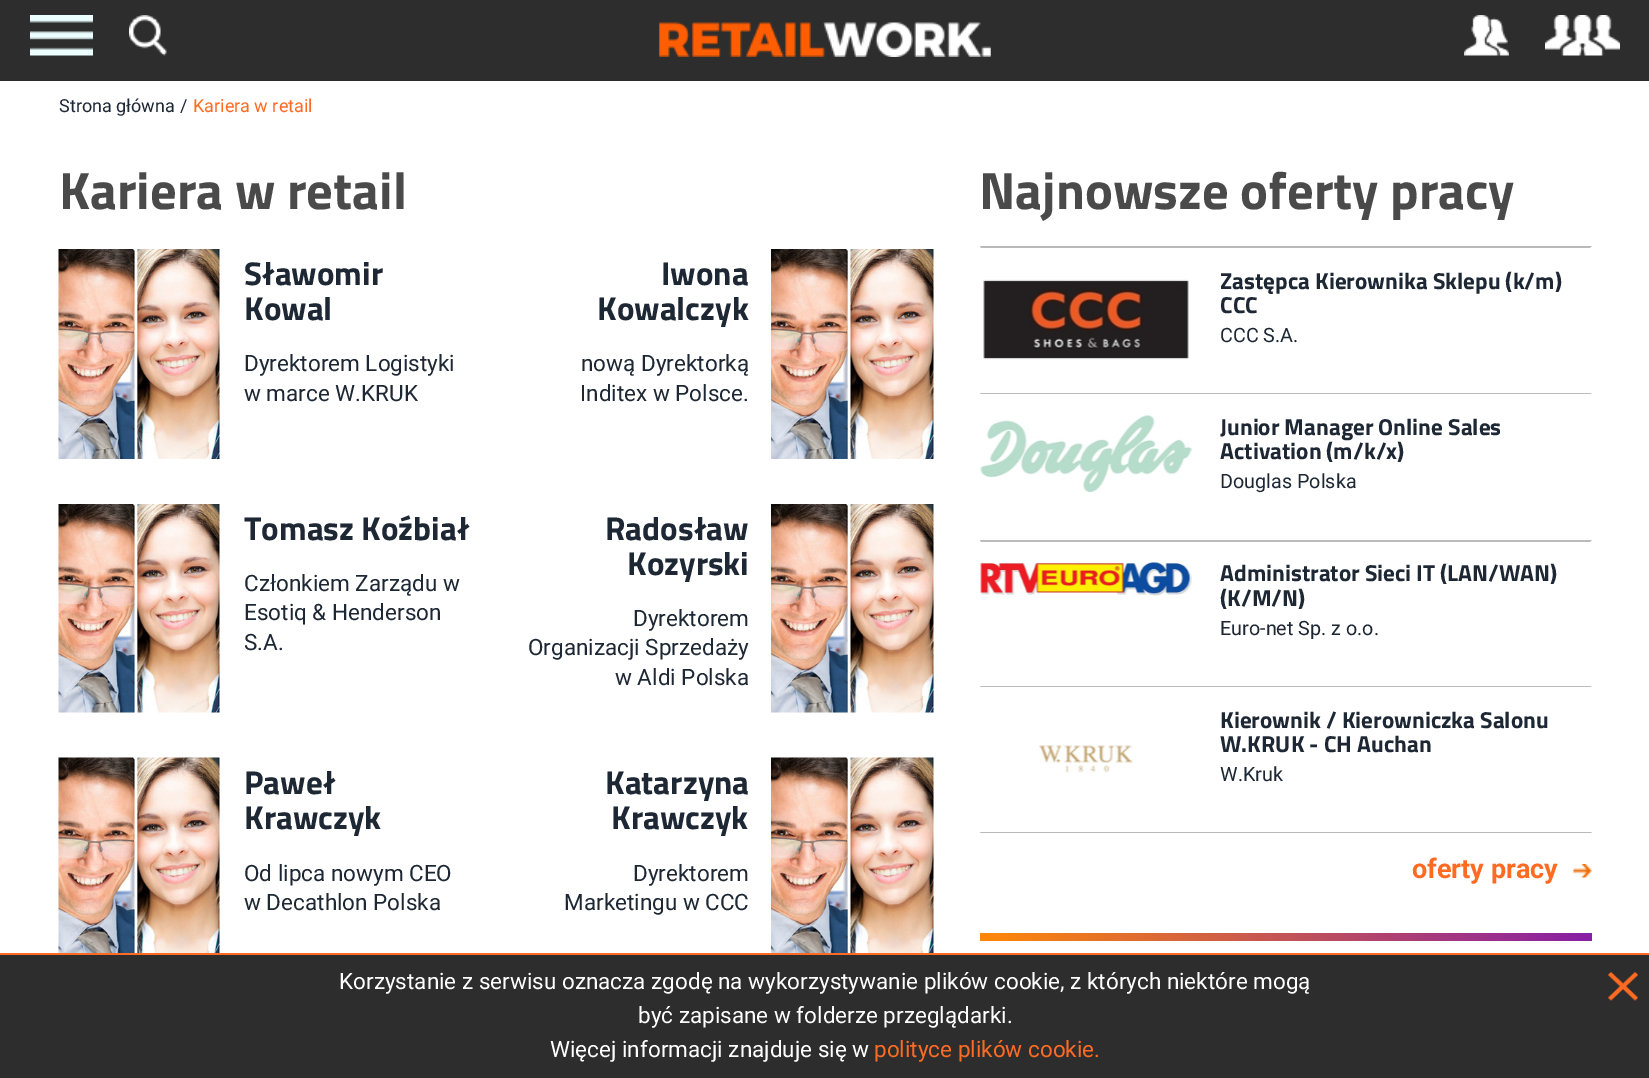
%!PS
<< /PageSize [1649 1078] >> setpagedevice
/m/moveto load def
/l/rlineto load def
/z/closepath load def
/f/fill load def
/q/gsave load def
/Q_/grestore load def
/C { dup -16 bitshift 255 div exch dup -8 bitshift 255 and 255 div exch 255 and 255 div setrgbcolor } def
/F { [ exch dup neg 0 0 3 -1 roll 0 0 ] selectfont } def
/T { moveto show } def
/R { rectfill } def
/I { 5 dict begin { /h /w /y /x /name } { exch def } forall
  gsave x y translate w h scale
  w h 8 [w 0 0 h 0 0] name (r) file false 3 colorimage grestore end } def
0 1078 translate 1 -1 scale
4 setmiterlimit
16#FFFFFF C
0 0 1649 1078 R
16#2D2D2D C
0 0 1649 81 R
(1.rgb) 30 15 63 41 I
(2.rgb) 129 15 38 41 I
(3.rgb) 1464 15 45 41 I
(4.rgb) 1545 15 75 41 I
(5.rgb) 659 22 332 35 I
/Roboto-Regular 18 F
16#1E2835 C
(Strona główna) 59 112 T
(/) 180 112 T
16#FF6B22 C
(Kariera w retail) 193 112 T
/TitilliumWeb-Bold 52.5 F
16#4A4A4A C
(Kariera w retail) 59 209 T
(6.rgb) 58 249 162 210 I
/TitilliumWeb-Bold 33 F
16#1E2835 C
(Sławomir) 244 285 T
(Kowal) 244 320 T
/Roboto-Regular 22.5 F
(Dyrektorem Logistyki) 244 371 T
(w marce W.KRUK) 244 401 T
/TitilliumWeb-Bold 33 F
(Iwona) 661 285 T
(Kowalczyk) 597 320 T
/Roboto-Regular 22.5 F
(nową Dyrektorką) 581 371 T
(Inditex w Polsce.) 580 401 T
(7.rgb) 771 249 163 210 I
(8.rgb) 58 504 162 209 I
/TitilliumWeb-Bold 33 F
(Tomasz Koźbiał) 244 540 T
/Roboto-Regular 22.5 F
(Członkiem Zarządu w) 244 591 T
(Esotiq & Henderson) 244 620 T
(S.A.) 244 650 T
/TitilliumWeb-Bold 33 F
(Radosław) 605 540 T
(Kozyrski) 627 575 T
/Roboto-Regular 22.5 F
(Dyrektorem) 633 626 T
(Organizacji Sprzedaży) 528 655 T
(w Aldi Polska) 615 685 T
(9.rgb) 771 504 163 209 I
(10.rgb) 58 757 162 196 I
/TitilliumWeb-Bold 33 F
(Paweł) 244 794 T
(Krawczyk) 244 829 T
/Roboto-Regular 22.5 F
(Od lipca nowym CEO) 244 881 T
(w Decathlon Polska) 244 910 T
/TitilliumWeb-Bold 33 F
(Katarzyna) 605 794 T
(Krawczyk) 611 829 T
/Roboto-Regular 22.5 F
(Dyrektorem) 633 881 T
(Marketingu w CCC) 564 910 T
(11.rgb) 771 757 163 196 I
/TitilliumWeb-Bold 52.5 F
16#4A4A4A C
(Najnowsze oferty pracy) 979 209 T
16#BABABA C
980 246 m 612 0 l -2 2 l -609 0 l z f
(12.rgb) 983 279 206 81 I
/TitilliumWeb-Bold 23.1 F
16#1E2835 C
(Zastępca Kierownika Sklepu \(k/m\)) 1220 289 T
(CCC) 1220 313 T
/Roboto-Regular 19.75 F
(CCC S.A.) 1220 342 T
16#BABABA C
980 393 m 612 0 l -2 1 l -609 0 l z f
(13.rgb) 980 415 212 77 I
/TitilliumWeb-Bold 23.1 F
16#1E2835 C
(Junior Manager Online Sales) 1220 435 T
(Activation \(m/k/x\)) 1220 459 T
/Roboto-Regular 19.75 F
(Douglas Polska) 1220 488 T
16#BABABA C
980 540 m 612 0 l -2 2 l -609 0 l z f
(14.rgb) 980 562 212 34 I
/TitilliumWeb-Bold 23.1 F
16#1E2835 C
(Administrator Sieci IT \(LAN/WAN\)) 1220 581 T
(\(K/M/N\)) 1220 606 T
/Roboto-Regular 19.75 F
(Euro-net Sp. z o.o.) 1220 635 T
16#BABABA C
980 686 m 612 0 l -2 1 l -609 0 l z f
(15.rgb) 1038 745 95 28 I
/TitilliumWeb-Bold 23.1 F
16#1E2835 C
(Kierownik / Kierowniczka Salonu) 1220 728 T
(W.KRUK - CH Auchan) 1220 752 T
/Roboto-Regular 19.75 F
(W.Kruk) 1220 781 T
q
980 245 612 588 rectclip
16#BABABA C
980 832 m 612 0 l -2 2 l -609 0 l z f
Q_
/Roboto-Bold 27 F
16#FF6B22 C
(oferty pracy) 1412 878 T
(16.rgb) 1573 864 19 14 I
q 980 933 m 612 0 l 0 8 l -612 0 l z clip newpath
<< /ShadingType 2 /ColorSpace /DeviceRGB /Coords [980 937 1592 937] /Extend [true true] /Function << /FunctionType 2 /Domain [0 1] /C0 [1 .533 .031] /C1 [.533 .122 .651] /N 1 >> >> shfill Q_
16#2D2D2D C
0 955 1649 123 R
16#FF6B22 C
0 953 1649 2 R
/Roboto-Regular 22.5 F
16#FFFFFF C
(Korzystanie z serwisu oznacza zgodę na wykorzystywanie plików cookie, z których niektóre mogą) 339 989 T
(być zapisane w folderze przeglądarki.) 638 1023 T
(Więcej informacji znajduje się w) 550 1057 T
16#FF6B22 C
(polityce plików cookie.) 874 1057 T
(17.rgb) 1608 972 30 29 I
showpage
